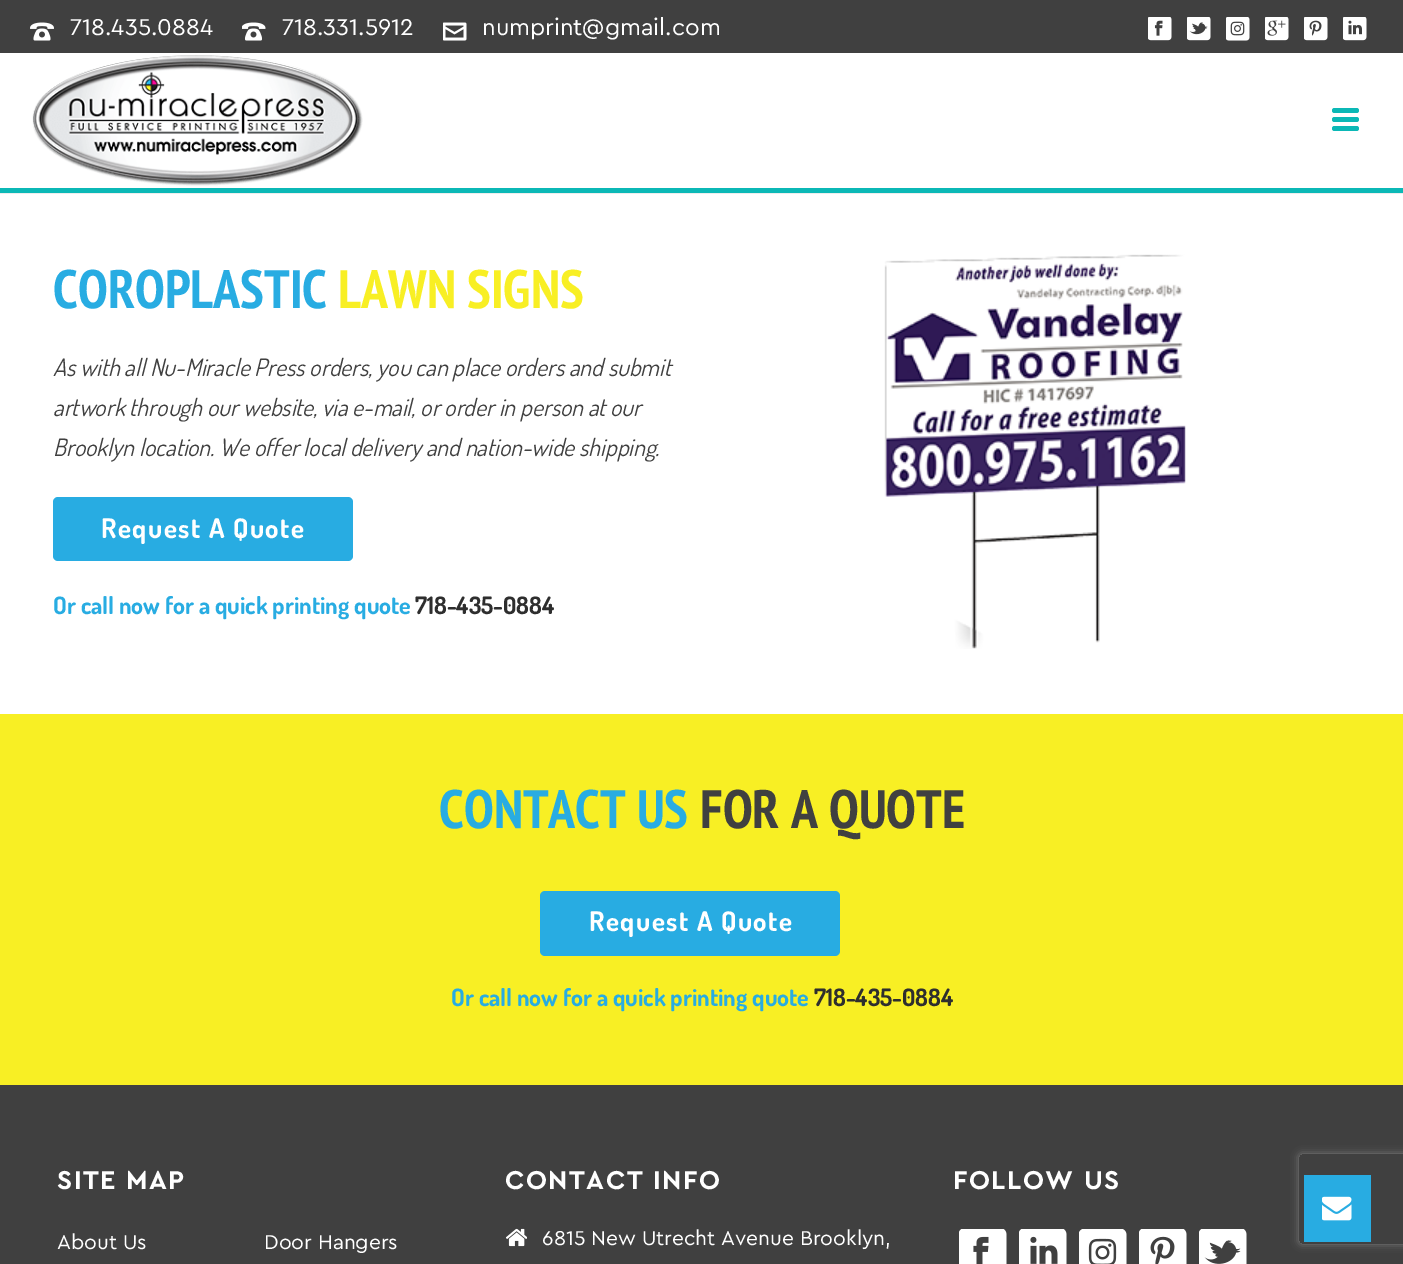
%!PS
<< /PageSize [1403 1264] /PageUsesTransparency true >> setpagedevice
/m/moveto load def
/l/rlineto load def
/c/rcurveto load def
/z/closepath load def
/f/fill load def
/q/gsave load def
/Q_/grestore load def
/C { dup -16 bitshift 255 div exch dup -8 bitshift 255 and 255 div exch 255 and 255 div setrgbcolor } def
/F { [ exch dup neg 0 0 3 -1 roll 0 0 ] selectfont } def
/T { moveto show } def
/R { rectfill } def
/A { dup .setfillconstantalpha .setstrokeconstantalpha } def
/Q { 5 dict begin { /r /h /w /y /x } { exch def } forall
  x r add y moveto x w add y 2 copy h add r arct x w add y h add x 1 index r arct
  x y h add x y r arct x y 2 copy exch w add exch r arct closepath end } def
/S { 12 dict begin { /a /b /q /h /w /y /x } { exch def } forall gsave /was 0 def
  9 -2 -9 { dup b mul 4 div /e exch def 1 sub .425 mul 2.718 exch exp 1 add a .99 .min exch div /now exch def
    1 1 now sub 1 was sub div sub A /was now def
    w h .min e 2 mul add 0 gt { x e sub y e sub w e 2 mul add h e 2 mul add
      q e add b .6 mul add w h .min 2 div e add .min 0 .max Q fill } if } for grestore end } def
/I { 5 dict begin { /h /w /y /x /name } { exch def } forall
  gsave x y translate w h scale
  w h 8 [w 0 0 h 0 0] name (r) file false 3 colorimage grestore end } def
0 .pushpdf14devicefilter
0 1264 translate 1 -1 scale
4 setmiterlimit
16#FFFFFF C
0 0 1403 1264 R
16#EDEDED C
0 193 1403 1 R
16#404040 C
0 0 1403 53 R
(1.rgb) 30 22 24 19 I
/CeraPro-Regular 24 F
16#FFFFFF C
(718.435.0884) 70 35 T
(2.rgb) 242 22 24 19 I
(718.331.5912) 282 35 T
(3.rgb) 443 22 24 19 I
(numprint@gmail.com) 482 35 T
(4.rgb) 1148 17 24 24 I
(5.rgb) 1187 17 24 24 I
(6.rgb) 1226 17 24 24 I
(7.rgb) 1265 17 24 24 I
(8.rgb) 1304 17 24 24 I
(9.rgb) 1343 17 24 24 I
16#0BB8B6 C
0 188 1403 5 R
(10.rgb) 32 55 331 131 I
1332 108 27 5 2.5 Q f
1332 117 27 5 2.5 Q f
1332 126 27 5 2.5 Q f
/PTSansNarrow-Bold 54 F
16#28ACE2 C
(COROPLASTIC) 53 308 T
16#F8EF24 C
(LAWN SIGNS) 338 308 T
/Dosis-Italic 24 F
16#404040 C
(As with all Nu-Miracle Press orders, you can place orders and submit) 53 376 T
(artwork through our website, via e-mail, or order in person at our) 53 416 T
(Brooklyn location. We offer local delivery and nation-wide shipping.) 53 456 T
16#28ACE2 C
53 497 300 64 5 Q f
/Dosis-Bold 27 F
16#FFFFFF C
101 538 m 1.5 0 (Request A Quote) ashow
/Dosis-Bold 24 F
16#28ACE2 C
(Or call now for a quick printing quote) 53 614 T
16#2E2E2E C
(718-435-0884) 415 614 T
(11.rgb) 884 254 302 395 I
16#F8EF24 C
0 714 1403 371 R
/PTSansNarrow-Bold 54 F
16#28ACE2 C
(CONTACT US) 439 828 T
16#404040 C
(FOR A QUOTE) 700 828 T
16#28ACE2 C
540 891 300 65 5 Q f
/Dosis-Bold 27 F
16#FFFFFF C
589 931 m 1.5 0 (Request A Quote) ashow
/Dosis-Bold 24 F
16#28ACE2 C
(Or call now for a quick printing quote) 451 1006 T
16#2E2E2E C
(718-435-0884) 814 1006 T
16#404040 C
0 1085 1403 179 R
/CeraPro-Bold 27 F
16#FFFFFF C
57 1189 m 1.5 0 (SITE MAP) ashow
/CeraPro-Regular 21 F
(About Us) 57 1249 T
(Door Hangers) 264 1249 T
/CeraPro-Bold 27 F
505 1189 m 1.5 0 (CONTACT INFO) ashow
(12.rgb) 506 1228 21 19 I
/CeraPro-Regular 21 F
(6815 New Utrecht Avenue Brooklyn,) 542 1245 T
/CeraPro-Bold 27 F
953 1189 m 1.5 0 (FOLLOW US) ashow
(13.rgb) 959 1229 48 35 I
(14.rgb) 1019 1229 48 35 I
(15.rgb) 1079 1229 48 35 I
(16.rgb) 1139 1229 48 35 I
(17.rgb) 1199 1229 48 35 I
q
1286 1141 m 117 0 l 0 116 l -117 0 l z 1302 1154 m 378 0 l 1.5 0 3 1.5 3 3 c 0 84 l 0 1.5 -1.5 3 -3 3 c -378 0 l -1.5 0 -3 -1.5 -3 -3 c 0 -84 l 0 -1.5 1.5 -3 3 -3 c z eoclip newpath
16#808080 C
1299 1154 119 90 3 4 1 S
Q_
16#28ACE2 C
1304 1175 67 67 R
(18.rgb) 1322 1196 30 25 I
.poppdf14devicefilter showpage
